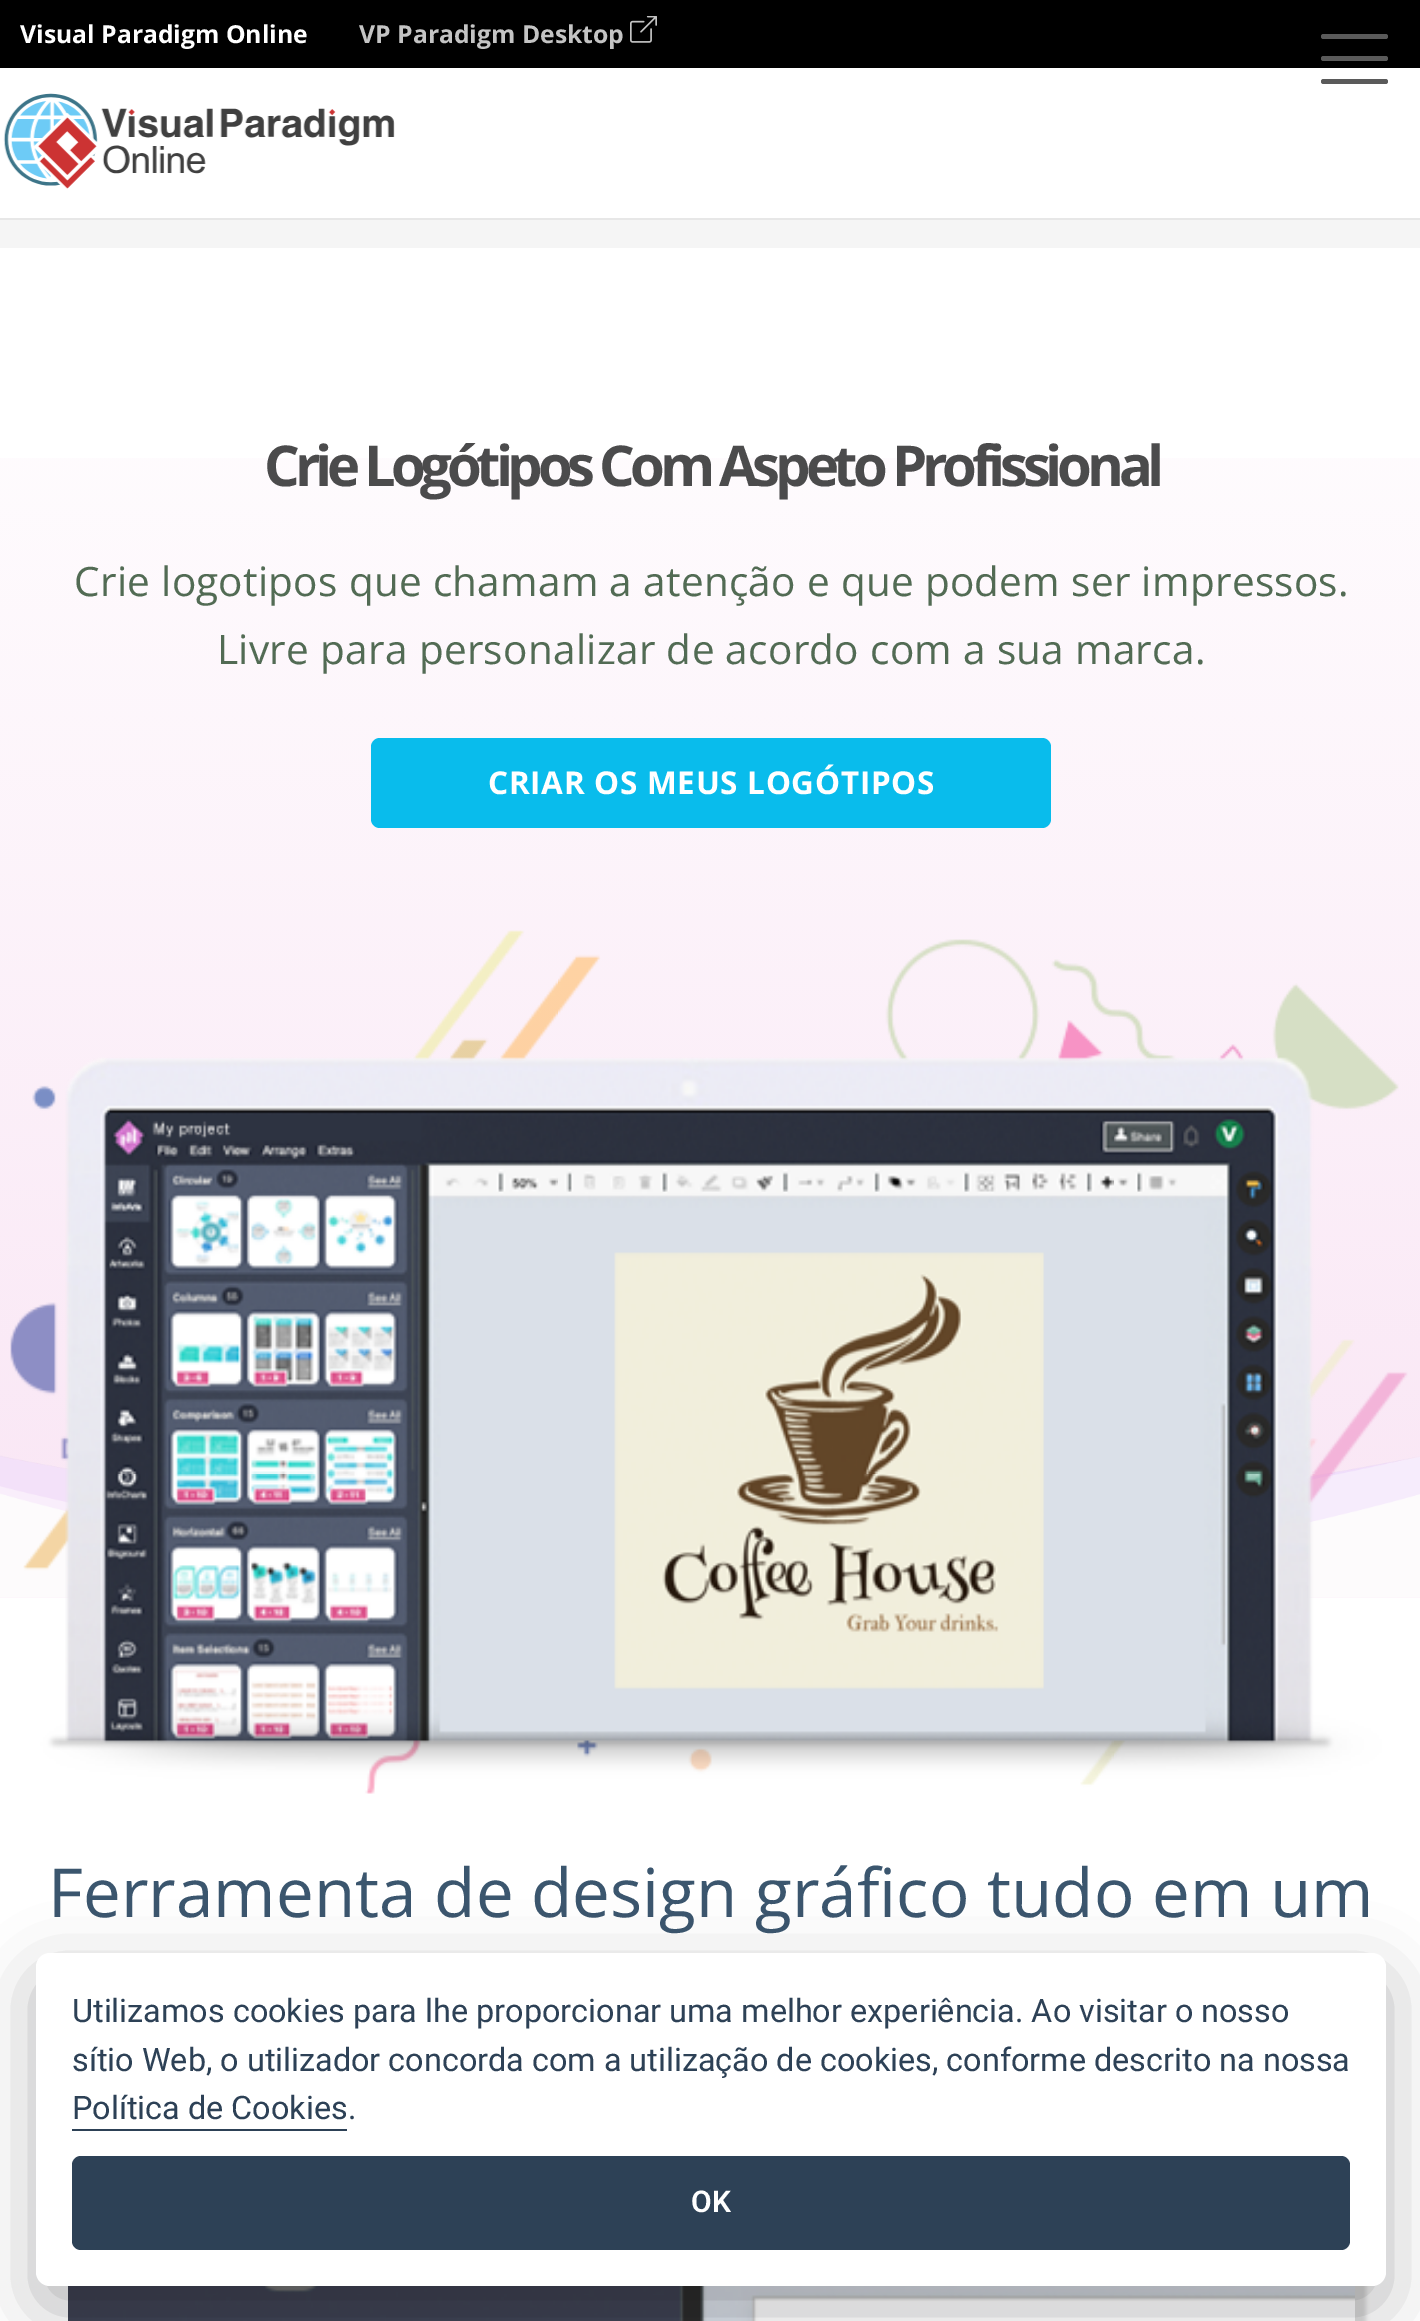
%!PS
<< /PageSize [1420 2321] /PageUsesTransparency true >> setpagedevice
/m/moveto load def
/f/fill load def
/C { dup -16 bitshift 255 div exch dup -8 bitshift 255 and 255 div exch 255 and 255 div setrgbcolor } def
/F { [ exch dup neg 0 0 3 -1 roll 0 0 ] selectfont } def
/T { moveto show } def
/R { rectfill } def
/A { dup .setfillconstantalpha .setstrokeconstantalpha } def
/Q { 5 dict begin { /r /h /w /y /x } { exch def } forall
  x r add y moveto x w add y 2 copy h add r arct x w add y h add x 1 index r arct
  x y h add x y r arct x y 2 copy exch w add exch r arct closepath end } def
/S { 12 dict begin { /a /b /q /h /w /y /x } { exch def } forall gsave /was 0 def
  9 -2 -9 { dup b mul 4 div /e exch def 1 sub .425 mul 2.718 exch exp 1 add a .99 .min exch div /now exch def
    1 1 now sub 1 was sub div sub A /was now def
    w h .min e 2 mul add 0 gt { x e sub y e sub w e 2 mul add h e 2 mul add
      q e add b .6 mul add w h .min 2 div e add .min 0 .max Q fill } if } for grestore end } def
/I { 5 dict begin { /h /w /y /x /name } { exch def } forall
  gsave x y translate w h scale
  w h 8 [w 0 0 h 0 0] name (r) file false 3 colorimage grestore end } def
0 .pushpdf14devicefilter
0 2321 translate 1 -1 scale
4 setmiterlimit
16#FFFFFF C
0 0 1420 2321 R
16#E7E7E7 C
0 218 1420 2 R
16#000000 C
0 0 1420 68 R
/OpenSans-Bold 24.75 F
16#FFFFFF C
(Visual Paradigm Online) 20 43 T
16#C4C4C4 C
(VP Paradigm Desktop) 359 43 T
(1.rgb) 630 16 27 27 I
(2.rgb) 3 93 392 96 I
16#5A5A5A C
1321 34 67 5 2.5 Q f
1321 56 67 5 2.5 Q f
1321 79 67 5 2.5 Q f
16#F5F5F5 C
0 220 1420 28 R
(3.rgb) 0 458 1420 1140 I
/OpenSans-Bold 56.25 F
16#4B4B4C C
264 486 m -5.25 0 (Crie Logótipos Com Aspeto Profissional) ashow
/OpenSans-Regular 40.5 F
16#526B54 C
74 596 m .3 0 (Crie logotipos que chamam a atenção e que podem ser impressos.) ashow
217 664 m .3 0 (Livre para personalizar de acordo com a sua marca.) ashow
16#09BCEC C
371 738 680 90 9 Q f
/OpenSans-Bold 31.5 F
16#FFFFFF C
488 794 m .7 0 (CRIAR OS MEUS LOGÓTIPOS) ashow
(4.rgb) 10 930 1398 864 I
/OpenSans-Regular 67.5 F
16#3B566E C
(Ferramenta de design gráfico tudo em um) 48 1917 T
16#000000 C
79 2176 1287 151 0 2 .13 S
(5.rgb) 68 2286 1287 35 I
16#020203 C
36 1976 1350 333 14 34 .28 S
16#FFFFFF C
36 1953 1350 333 14 Q f
/Roboto-Regular 32.4 F
16#2D4156 C
(Utilizamos cookies para lhe proporcionar uma melhor experiência. Ao visitar o nosso) 72 2022 T
(sítio Web, o utilizador concorda com a utilização de cookies, conforme descrito na nossa) 72 2071 T
(Política de Cookies.) 72 2119 T
72 2129 275 2 R
72 2156 1278 94 9 Q f
/Roboto-SemiBold 30 F
16#FFFFFF C
(OK) 691 2212 T
.poppdf14devicefilter showpage
